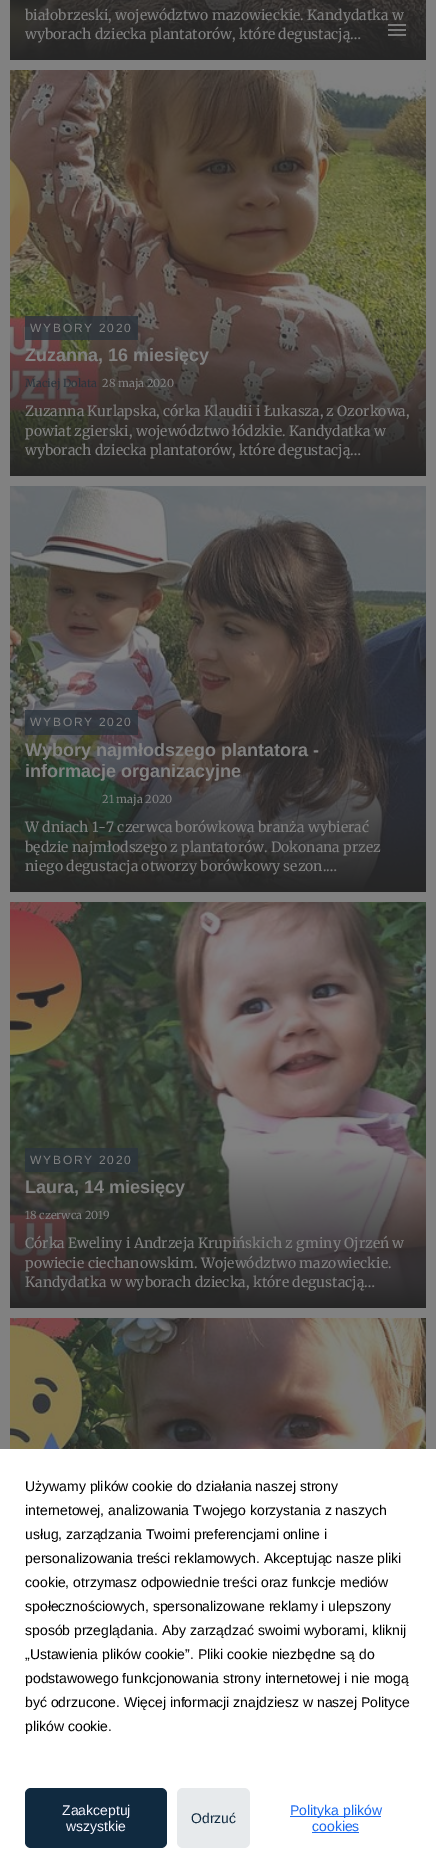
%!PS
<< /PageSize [436 1873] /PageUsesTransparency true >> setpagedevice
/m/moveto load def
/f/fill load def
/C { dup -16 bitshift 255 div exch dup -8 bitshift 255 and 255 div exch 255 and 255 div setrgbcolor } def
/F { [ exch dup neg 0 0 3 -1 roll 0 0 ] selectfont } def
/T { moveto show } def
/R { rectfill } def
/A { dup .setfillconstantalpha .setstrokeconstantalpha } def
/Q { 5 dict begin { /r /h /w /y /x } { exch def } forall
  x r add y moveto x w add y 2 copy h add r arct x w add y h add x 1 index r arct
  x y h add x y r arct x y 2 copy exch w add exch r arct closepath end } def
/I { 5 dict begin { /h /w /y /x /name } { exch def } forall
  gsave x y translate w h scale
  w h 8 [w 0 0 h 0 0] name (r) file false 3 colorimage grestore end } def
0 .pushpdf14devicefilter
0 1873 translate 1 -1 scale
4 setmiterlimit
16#818181 C
0 0 436 1873 R
(1.rgb) 10 0 416 60 I
/Merriweather-Light 14 F
(białobrzeski, województwo mazowieckie. Kandydatka w) 25 20 T
(wyborach dziecka plantatorów, które degustacją…) 25 39 T
(2.rgb) 10 70 416 406 I
0.8 A
16#2B343C C
25 316 113 24 R
/LiberationSans-Regular 12 F
1 A
16#818181 C
30 332 m 1.75 0 (WYBORY 2020) ashow
/LiberationSans-Bold 18 F
(Zuzanna, 16 miesięcy) 25 361 T
/Merriweather-Light 11 F
16#2B343C C
(Maciej Dolata) 25 387 T
16#818181 C
(28 maja 2020) 102 387 T
/Merriweather-Light 14 F
(Zuzanna Kurlapska, córka Klaudii i Łukasza, z Ozorkowa,) 25 416 T
(powiat zgierski, województwo łódzkie. Kandydatka w) 25 436 T
(wyborach dziecka plantatorów, które degustacją…) 25 455 T
(3.rgb) 10 486 416 406 I
0.8 A
16#2B343C C
25 710 113 25 R
/LiberationSans-Regular 12 F
1 A
16#818181 C
30 726 m 1.75 0 (WYBORY 2020) ashow
/LiberationSans-Bold 18 F
(Wybory najmłodszego plantatora -) 25 756 T
(informacje organizacyjne) 25 777 T
/Merriweather-Light 11 F
(21 maja 2020) 102 803 T
/Merriweather-Light 14 F
(W dniach 1-7 czerwca borówkowa branża wybierać) 25 832 T
(będzie najmłodszego z plantatorów. Dokonana przez) 25 852 T
(niego degustacja otworzy borówkowy sezon.…) 25 871 T
(4.rgb) 10 902 416 406 I
0.8 A
16#2B343C C
25 1148 113 24 R
/LiberationSans-Regular 12 F
1 A
16#818181 C
30 1164 m 1.75 0 (WYBORY 2020) ashow
/LiberationSans-Bold 18 F
(Laura, 14 miesięcy) 25 1193 T
/Merriweather-Light 11 F
(18 czerwca 2019) 25 1219 T
/Merriweather-Light 14 F
(Córka Eweliny i Andrzeja Krupińskich z gminy Ojrzeń w) 25 1248 T
(powiecie ciechanowskim. Województwo mazowieckie.) 25 1268 T
(Kandydatka w wyborach dziecka, które degustacją…) 25 1287 T
(5.rgb) 10 1318 416 131 I
16#FFFFFF C
0 1449 436 424 R
/LiberationSans-Regular 14 F
16#000000 C
(Używamy plików cookie do działania naszej strony) 25 1491 T
(internetowej, analizowania Twojego korzystania z naszych) 25 1515 T
(usług, zarządzania Twoimi preferencjami online i) 25 1539 T
(personalizowania treści reklamowych. Akceptując nasze pliki) 25 1563 T
(cookie, otrzymasz odpowiednie treści oraz funkcje mediów) 25 1587 T
(społecznościowych, spersonalizowane reklamy i ulepszony) 25 1611 T
(sposób przeglądania. Aby zarządzać swoimi wyborami, kliknij) 25 1635 T
(„Ustawienia plików cookie”. Pliki cookie niezbędne są do) 25 1659 T
(podstawowego funkcjonowania strony internetowej i nie mogą) 25 1683 T
(być odrzucone. Więcej informacji znajdziesz w naszej Polityce) 25 1707 T
(plików cookie.) 25 1731 T
16#102A40 C
25 1788 142 60 6 Q f
16#F5F4FF C
(Zaakceptuj) 62 1815 T
(wszystkie) 66 1831 T
16#E7EAEC C
177 1788 73 60 6 Q f
16#102A40 C
(Odrzuć) 191 1823 T
16#1A69EF C
290 1816 91 1 R
(Polityka plików) 290 1815 T
(cookies) 312 1831 T
312 1832 47 1 R
(6.rgb) 388 24 18 12 I
.poppdf14devicefilter showpage
